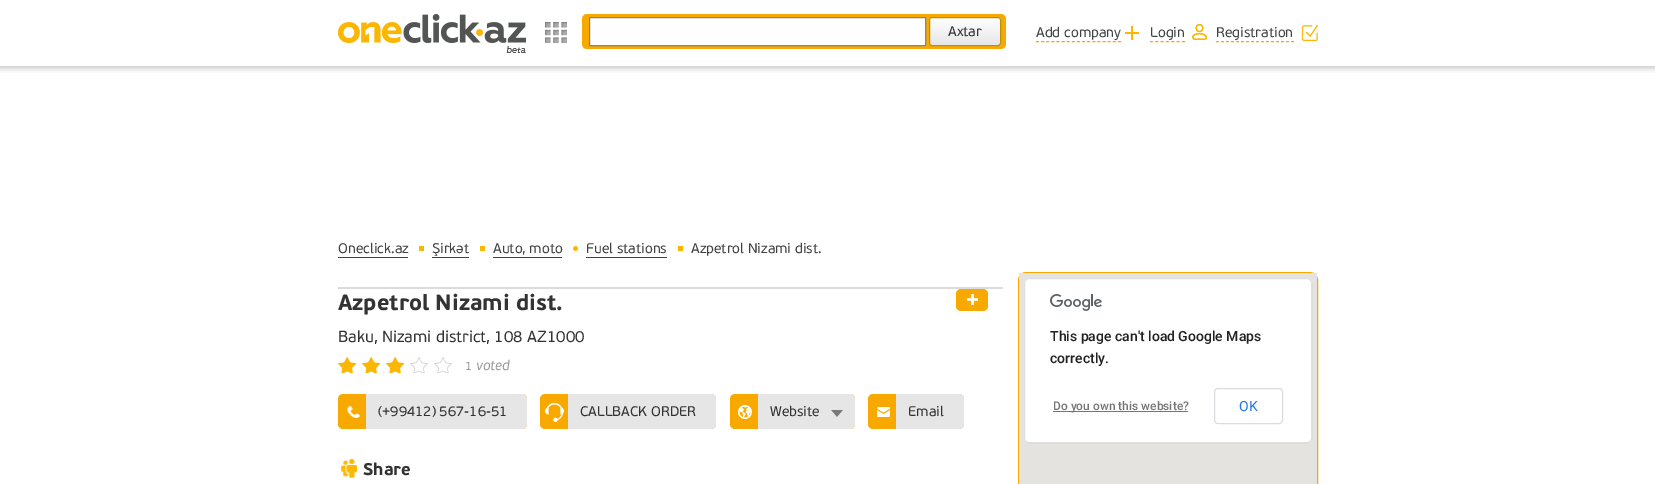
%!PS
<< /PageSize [1655 484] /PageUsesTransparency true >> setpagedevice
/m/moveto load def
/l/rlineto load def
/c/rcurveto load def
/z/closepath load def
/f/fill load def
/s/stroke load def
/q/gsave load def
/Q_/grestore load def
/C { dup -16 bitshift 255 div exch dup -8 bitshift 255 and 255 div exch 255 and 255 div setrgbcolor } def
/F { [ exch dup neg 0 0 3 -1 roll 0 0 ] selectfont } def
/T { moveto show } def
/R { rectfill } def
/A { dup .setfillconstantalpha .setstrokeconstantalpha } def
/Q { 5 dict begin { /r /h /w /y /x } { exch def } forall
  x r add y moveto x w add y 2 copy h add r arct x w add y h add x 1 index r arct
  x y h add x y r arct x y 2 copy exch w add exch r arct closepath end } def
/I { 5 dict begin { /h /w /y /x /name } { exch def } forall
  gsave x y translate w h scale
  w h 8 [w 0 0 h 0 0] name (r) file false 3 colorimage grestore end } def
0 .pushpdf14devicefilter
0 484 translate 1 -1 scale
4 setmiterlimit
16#FFFFFF C
0 0 1655 484 R
(1.rgb) 0 66 1655 7 I
(2.rgb) 338 14 188 39 I
(3.rgb) 545 22 22 21 I
16#F7A900 C
582 14 424 35 5 Q f
16#FFFFFF C
589.5 17.5 m 336 0 l 0 28 l -336 0 l z q f Q_
16#848586 C
s
q
929 17 72 29 3 Q clip newpath
q 929 18 m 72 0 l 0 27 l -72 0 l z clip newpath
<< /ShadingType 2 /ColorSpace /DeviceRGB /Coords [965 18 965 45] /Extend [true true] /Function << /FunctionType 2 /Domain [0 1] /C0 [1 1 1] /C1 [.902 .902 .902] /N 1 >> >> shfill Q_
Q_
16#BA9010 C
929.5 17.5 71 28 2.5 Q s
/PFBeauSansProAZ-Regular 14 F
16#333333 C
(Axtar) 948 36 T
(4.rgb) 1125 26 15 14 I
16#F7A900 C
[3 2.12] 0 setdash
1036 41.5 m 85 0 l s
16#414242 C
(Add company) 1036 37 T
(5.rgb) 1192 24 15 16 I
16#F7A900 C
[3 2.33] 0 setdash
1150 41.5 m 35 0 l s
16#414242 C
(Login) 1150 37 T
(6.rgb) 1301 25 17 16 I
16#F7A900 C
[3 2] 0 setdash
1216 41.5 m 78 0 l s
16#414242 C
(Registration) 1216 37 T
(Oneclick.az) 338 253 T
338 257 70 1 R
16#FAB700 C
419 246 5 5 R
16#414242 C
(Şirkət) 432 253 T
432 257 37 1 R
16#FAB700 C
480 246 5 5 R
16#414242 C
(Auto, moto) 493 253 T
493 257 69 1 R
(7.rgb) 573 246 6 5 I
(Fuel stations) 586 253 T
586 257 81 1 R
16#FAB700 C
678 246 5 5 R
16#414242 C
(Azpetrol Nizami dist.) 691 253 T
16#DBDBDB C
338 287 665 2 R
/PFBeauSansProAZ-Bold 22 F
16#333333 C
(Azpetrol Nizami dist.) 338 310 T
16#F7A900 C
956 289 32 22 5 Q f
(8.rgb) 967 294 11 11 I
/PFBeauSansProAZ-Regular 16 F
16#333333 C
(Baku, Nizami district, 108 AZ1000) 338 342 T
(9.rgb) 338 357 114 16 I
/DejaVuSansMono-Regular 11 F
16#999999 C
(1) 465 370 T
/PFBeauSansProAZ-Italic 14 F
(voted) 476 370 T
16#F7A900 C
338 394 189 35 5 Q f
(10.rgb) 347 406 13 12 I
16#E6E6E6 C
366 394 m 156 0 l 3 0 5 2 5 5 c 0 25 l 0 3 -2 5 -5 5 c -156 0 l z f
/PFBeauSansProAZ-Regular 14 F
16#333333 C
(\(+99412\) 567-16-51) 378 416 T
16#F7A900 C
540 394 176 35 5 Q f
(11.rgb) 545 403 19 19 I
16#E6E6E6 C
568 394 m 143 0 l 3 0 5 2 5 5 c 0 25 l 0 3 -2 5 -5 5 c -143 0 l z f
16#333333 C
(CALLBACK ORDER) 580 416 T
16#F7A900 C
730 394 125 35 5 Q f
(12.rgb) 738 405 14 14 I
16#E6E6E6 C
758 394 m 92 0 l 3 0 5 2 5 5 c 0 25 l 0 3 -2 5 -5 5 c -92 0 l z f
(13.rgb) 831 410 12 7 I
16#333333 C
(Website) 770 416 T
16#F7A900 C
868 394 96 35 5 Q f
(14.rgb) 877 407 13 10 I
16#E6E6E6 C
896 394 m 63 0 l 3 0 5 2 5 5 c 0 25 l 0 3 -2 5 -5 5 c -63 0 l z f
16#333333 C
(Email) 908 416 T
(15.rgb) 341 459 16 19 I
/PFBeauSansProAZ-Bold 17 F
(Share) 363 475 T
16#F7A900 C
[] 0 setdash
1018.5 272.5 299 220 7.5 Q s
16#E5E3DF C
1019 273 298 211 R
16#FFFFFF C
1024 278 288 165 5 Q f
0.12 A
16#000000 C
1024.5 278.5 287 164 4.5 Q s
1 A
(16.rgb) 1050 294 52 17 I
/Roboto-Medium 14 F
16#212121 C
(This page can't load Google Maps) 1050 341 T
(correctly.) 1050 363 T
16#757575 C
1053 411 135 1 R
/Roboto-Medium 12 F
(Do you own this website?) 1053 410 T
16#DADCE0 C
1214.5 388.5 68 35 3.5 Q s
/Roboto-Regular 14 F
16#1A73E8 C
(OK) 1239 411 T
.poppdf14devicefilter showpage
